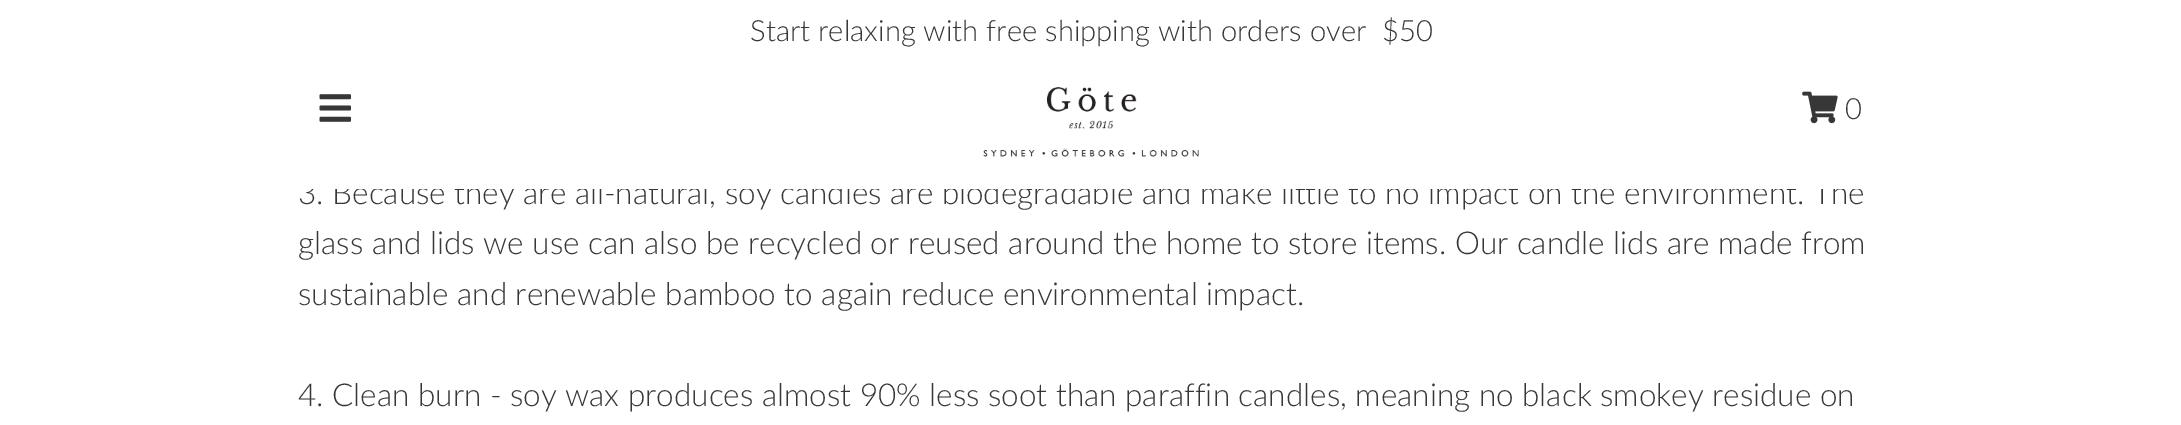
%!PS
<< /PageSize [2181 425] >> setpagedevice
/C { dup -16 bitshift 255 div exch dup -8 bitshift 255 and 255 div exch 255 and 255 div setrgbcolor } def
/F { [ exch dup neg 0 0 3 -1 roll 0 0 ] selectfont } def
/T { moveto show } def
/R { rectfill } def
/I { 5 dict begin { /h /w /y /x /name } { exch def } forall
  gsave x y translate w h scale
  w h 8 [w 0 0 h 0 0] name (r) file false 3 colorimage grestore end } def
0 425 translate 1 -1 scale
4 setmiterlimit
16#FFFFFF C
0 0 2181 425 R
/Lato-Light 31.5 F
16#373737 C
(3. Because they are all-natural, soy candles are biodegradable and make little to no impact on the environment. The) 298 204 T
16#FFFFFF C
300 181 1561 8 R
/Lato-Light 29.25 F
16#373737 C
(Start relaxing with free shipping with orders over  $50) 750 41 T
(1.rgb) 319 94 32 28 I
(2.rgb) 983 87 216 70 I
(3.rgb) 1802 91 36 33 I
(0) 1845 119 T
/Lato-Light 31.5 F
(glass and lids we use can also be recycled or reused around the home to store items. Our candle lids are made from) 298 254 T
(sustainable and renewable bamboo to again reduce environmental impact.) 298 305 T
(4. Clean burn - soy wax produces almost 90% less soot than paraffin candles, meaning no black smokey residue on) 298 406 T
showpage
